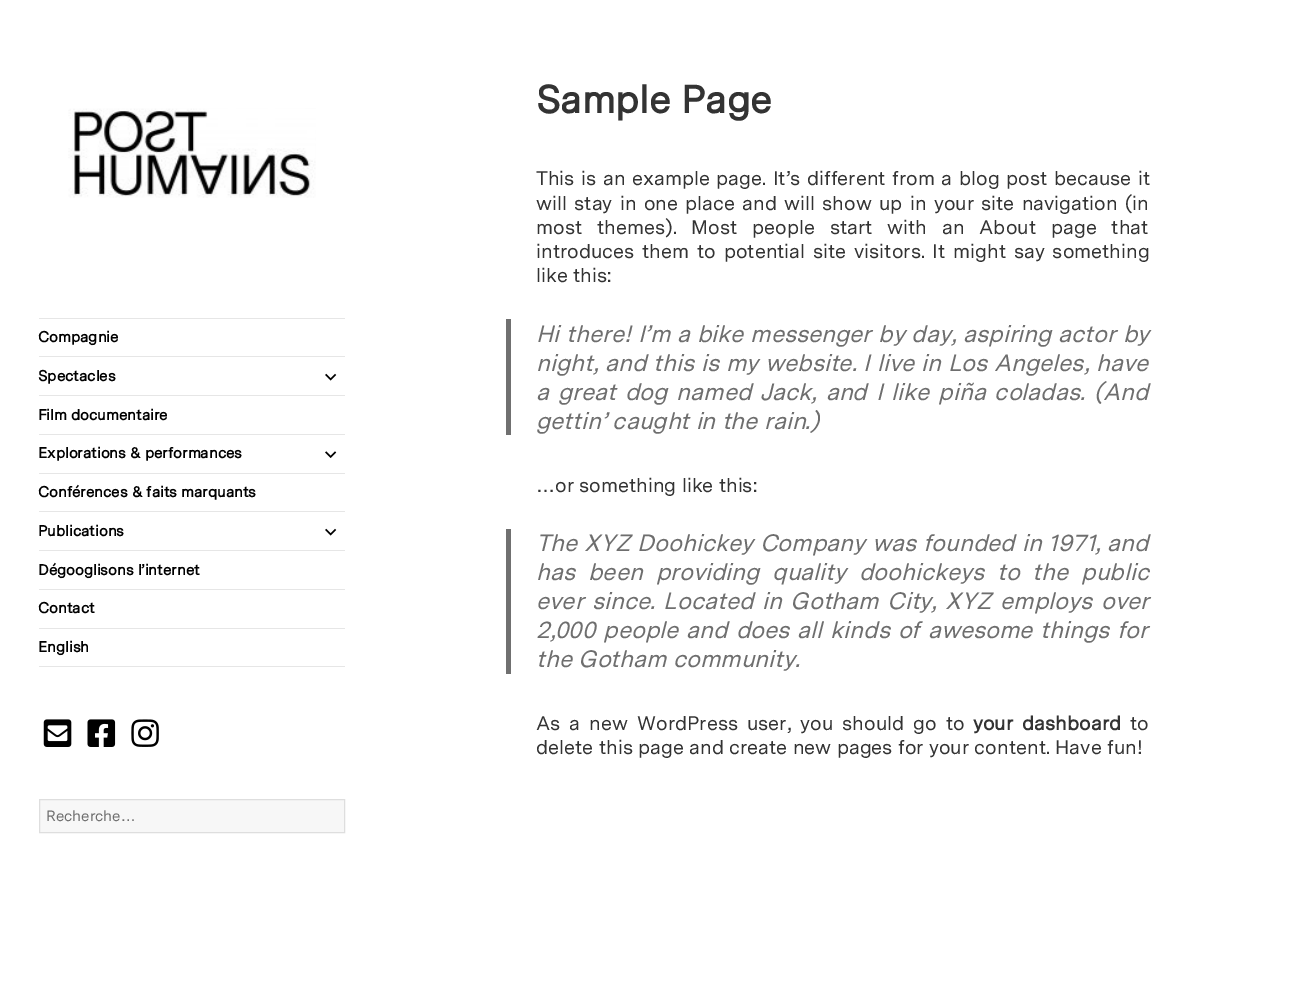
%!PS
<< /PageSize [1302 1005] >> setpagedevice
/m/moveto load def
/l/rlineto load def
/z/closepath load def
/f/fill load def
/s/stroke load def
/q/gsave load def
/Q_/grestore load def
/C { dup -16 bitshift 255 div exch dup -8 bitshift 255 and 255 div exch 255 and 255 div setrgbcolor } def
/F { [ exch dup neg 0 0 3 -1 roll 0 0 ] selectfont } def
/T { moveto show } def
/R { rectfill } def
/I { 5 dict begin { /h /w /y /x /name } { exch def } forall
  gsave x y translate w h scale
  w h 8 [w 0 0 h 0 0] name (r) file false 3 colorimage grestore end } def
0 1005 translate 1 -1 scale
4 setmiterlimit
16#FFFFFF C
0 0 1302 1005 R
(1.rgb) 68 108 248 90 I
16#E6E6E6 C
39 318 306 1 R
39 666 306 1 R
/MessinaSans-Bold 15 F
16#000000 C
(Compagnie) 38 342 T
16#E6E6E6 C
39 356 306 1 R
16#000000 C
(Spectacles) 38 381 T
(2.rgb) 325 373 12 8 I
16#E6E6E6 C
39 395 306 1 R
16#000000 C
(Film documentaire) 38 420 T
16#E6E6E6 C
39 434 306 1 R
16#000000 C
(Explorations & performances) 38 458 T
(3.rgb) 325 451 12 7 I
16#E6E6E6 C
39 473 306 1 R
16#000000 C
(Conférences & faits marquants) 38 497 T
16#E6E6E6 C
39 511 306 1 R
16#000000 C
(Publications) 38 536 T
(2.rgb) 325 528 12 8 I
16#E6E6E6 C
39 550 306 1 R
16#000000 C
(Dégooglisons l’internet) 38 575 T
16#E6E6E6 C
39 589 306 1 R
16#000000 C
(Contact) 38 613 T
16#E6E6E6 C
39 628 306 1 R
16#000000 C
(English) 38 652 T
(4.rgb) 43 719 29 28 I
(5.rgb) 87 719 29 28 I
(6.rgb) 131 719 28 28 I
16#F7F7F7 C
39.5 799.5 m 305 0 l 0 33 l -305 0 l z q f Q_
16#DEDEDE C
s
/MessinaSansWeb-Regular 15 F
16#6E6E6E C
(Recherche…) 46 821 T
/MessinaSans-Bold 38.75 F
16#333333 C
(Sample Page) 536 113 T
/MessinaSans-Regular 19.7 F
536 185 m 1.25 0 32 (This is an example page. It’s different from a blog post because it) widthshow
536 210 m 2 0 32 (will stay in one place and will show up in your site navigation \(in) widthshow
536 234 m 9.5 0 32 (most themes\). Most people start with an About page that) widthshow
536 258 m 2.5 0 32 (introduces them to potential site visitors. It might say something) widthshow
(like this:) 536 282 T
16#707070 C
506 319 5 116 R
/MessinaSans-Italic 23.6 F
16#6E6E6E C
536 342 m .5 0 32 (Hi there! I’m a bike messenger by day, aspiring actor by) widthshow
536 371 m .5 0 32 (night, and this is my website. I live in Los Angeles, have) widthshow
536 400 m 2.5 0 32 (a great dog named Jack, and I like piña coladas. \(And) widthshow
(gettin’ caught in the rain.\)) 536 429 T
/MessinaSans-Regular 19.7 F
16#333333 C
(…or something like this:) 536 492 T
16#707070 C
506 529 5 145 R
/MessinaSans-Italic 23.6 F
16#6E6E6E C
536 551 m .5 0 32 (The XYZ Doohickey Company was founded in 1971, and) widthshow
536 580 m 6.5 0 32 (has been providing quality doohickeys to the public) widthshow
536 609 m 2.25 0 32 (ever since. Located in Gotham City, XYZ employs over) widthshow
536 638 m 1.6 0 32 (2,000 people and does all kinds of awesome things for) widthshow
(the Gotham community.) 536 667 T
/MessinaSans-Regular 19.7 F
16#333333 C
536 730 m 3.75 0 32 (As a new WordPress user, you should go to) widthshow
/MessinaSans-Bold 19.7 F
973 730 m 3.75 0 32 (your dashboard) widthshow
/MessinaSans-Regular 19.7 F
(to) 1130 730 T
(delete this page and create new pages for your content. Have fun!) 536 754 T
showpage
